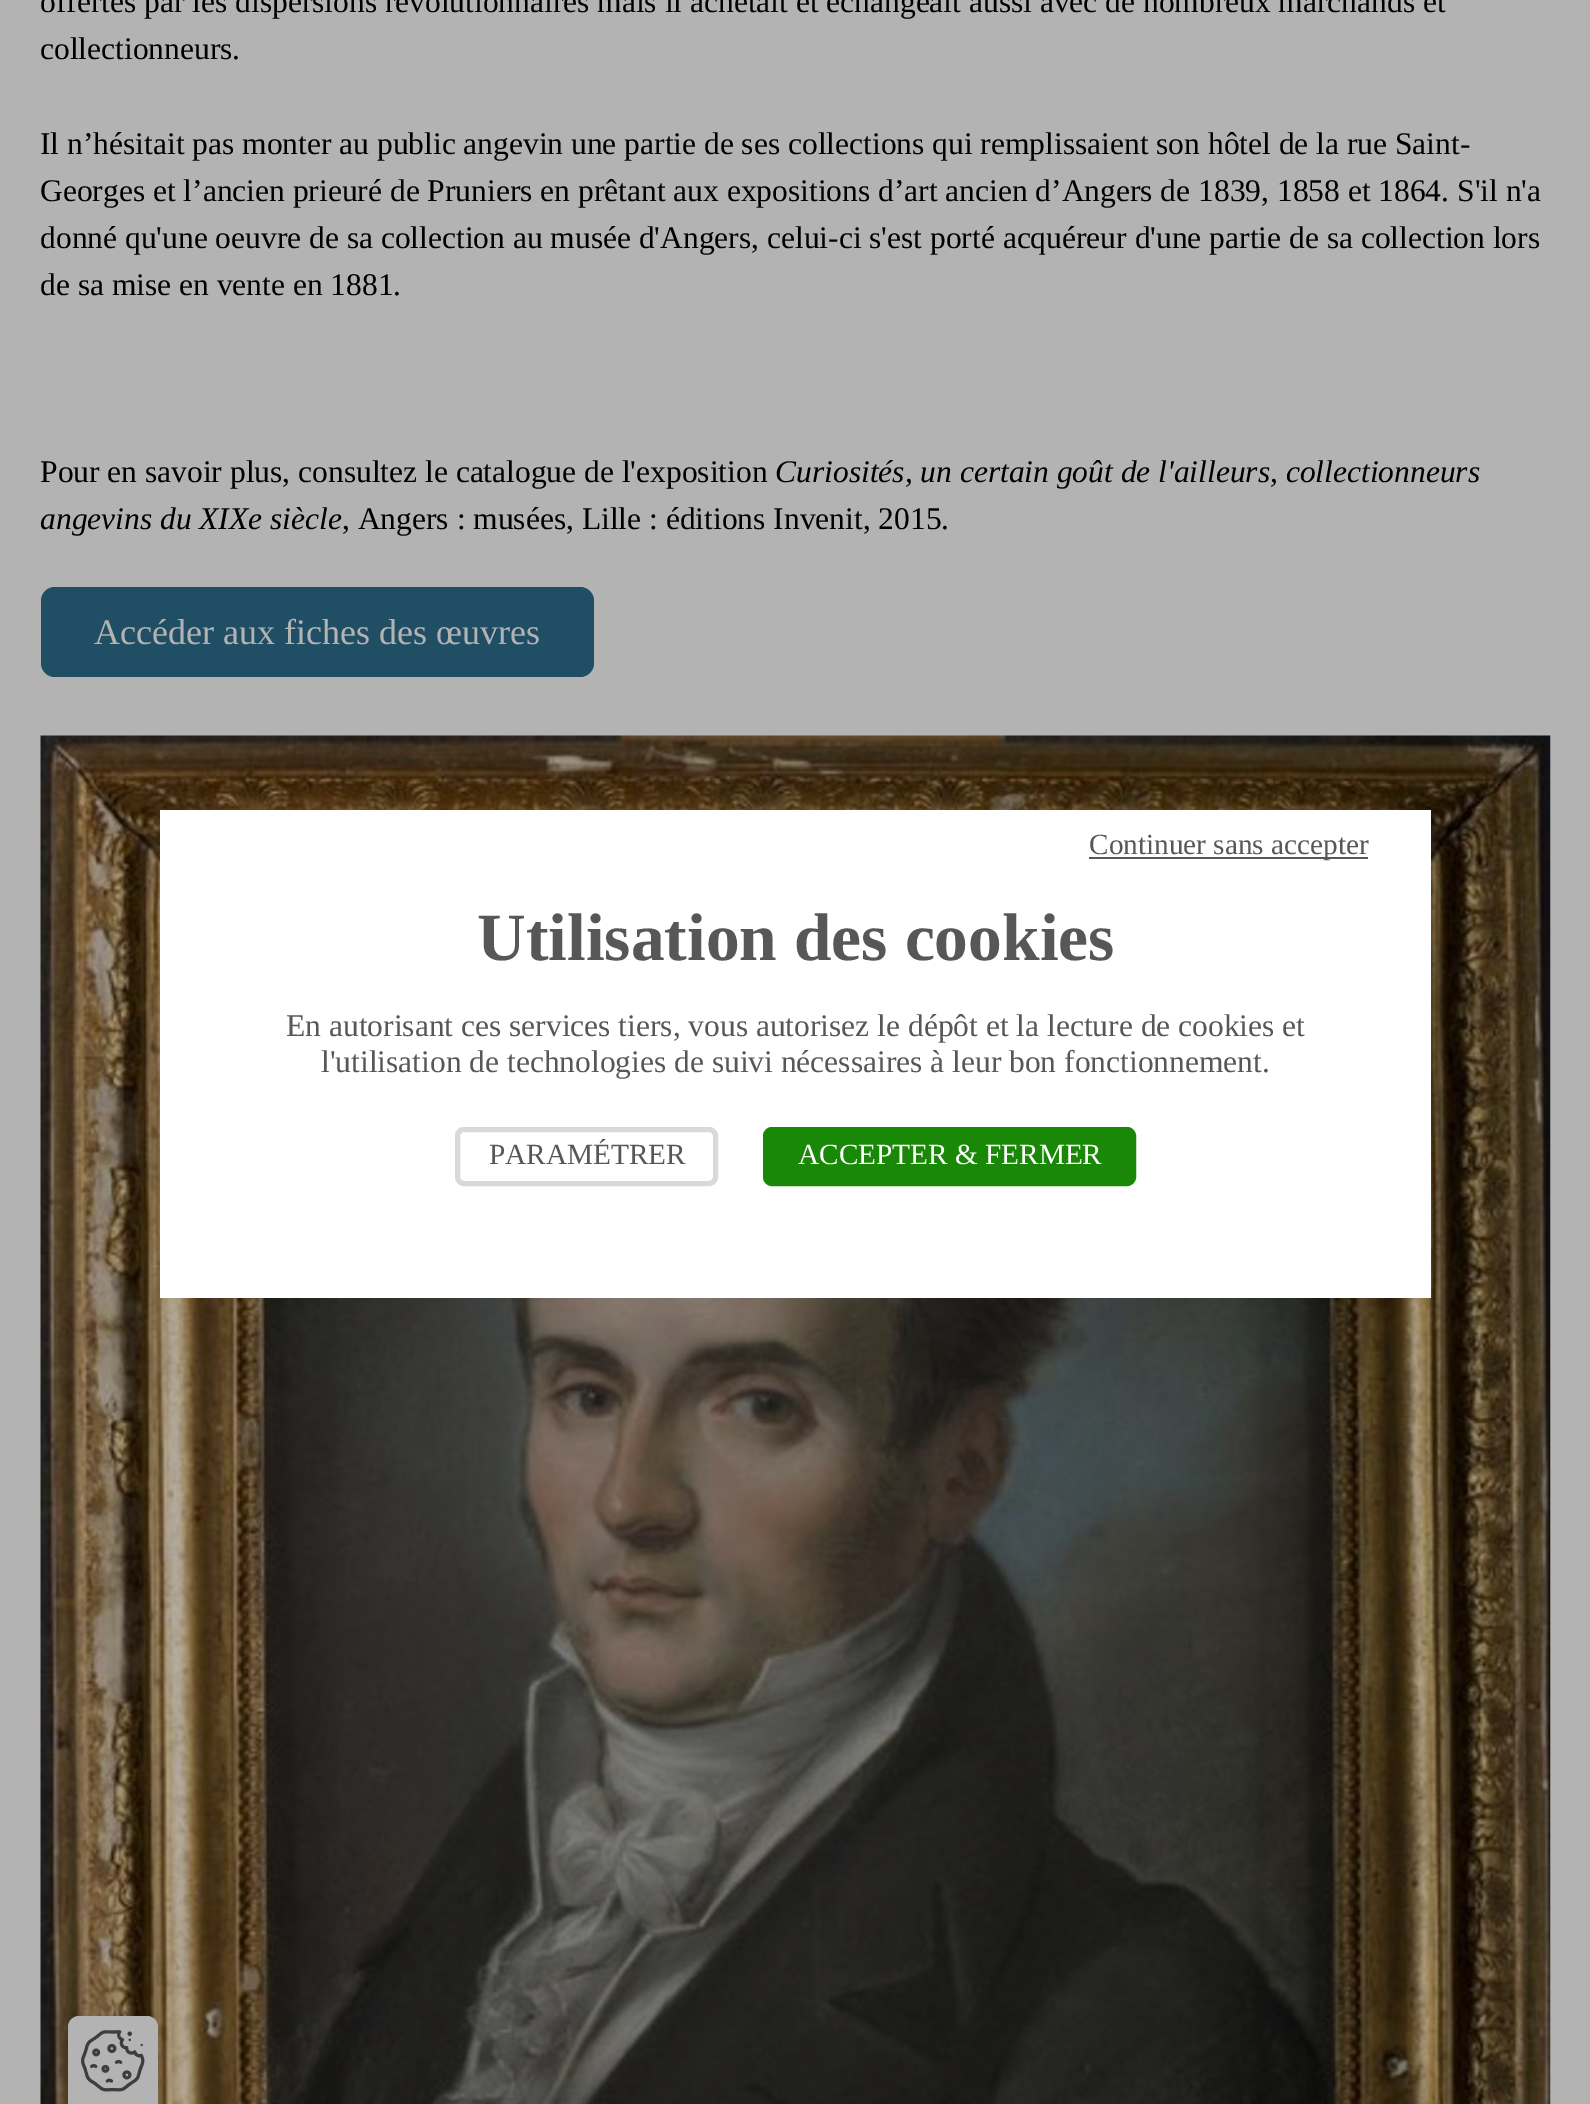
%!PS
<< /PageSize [1590 2104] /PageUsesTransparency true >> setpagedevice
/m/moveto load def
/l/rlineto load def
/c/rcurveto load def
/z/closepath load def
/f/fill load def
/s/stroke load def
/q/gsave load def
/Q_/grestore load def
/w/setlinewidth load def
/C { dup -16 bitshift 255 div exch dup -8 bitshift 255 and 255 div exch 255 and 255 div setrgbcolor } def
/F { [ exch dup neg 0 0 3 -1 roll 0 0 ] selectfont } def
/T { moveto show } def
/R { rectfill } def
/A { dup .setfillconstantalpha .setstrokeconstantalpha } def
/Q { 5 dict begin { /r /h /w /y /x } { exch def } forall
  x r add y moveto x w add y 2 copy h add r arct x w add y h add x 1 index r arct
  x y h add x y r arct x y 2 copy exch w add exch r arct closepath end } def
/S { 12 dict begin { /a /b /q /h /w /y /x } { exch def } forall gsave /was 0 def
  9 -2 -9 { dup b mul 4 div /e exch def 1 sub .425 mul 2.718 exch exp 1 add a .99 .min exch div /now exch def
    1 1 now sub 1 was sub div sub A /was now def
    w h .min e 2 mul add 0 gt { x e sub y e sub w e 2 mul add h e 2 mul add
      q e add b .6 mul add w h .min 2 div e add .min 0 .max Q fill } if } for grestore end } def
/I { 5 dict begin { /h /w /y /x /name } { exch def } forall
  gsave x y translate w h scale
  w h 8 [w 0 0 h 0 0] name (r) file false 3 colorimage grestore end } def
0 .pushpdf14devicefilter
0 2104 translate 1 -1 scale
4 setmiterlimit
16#B3B3B3 C
0 0 1590 2104 R
/LiberationSerif-Regular 31.5 F
16#000000 C
(offertes par les dispersions révolutionnaires mais il achetait et échangeait aussi avec de nombreux marchands et) 40 12 T
(collectionneurs.) 40 59 T
(Il n’hésitait pas monter au public angevin une partie de ses collections qui remplissaient son hôtel de la rue Saint-) 40 154 T
(Georges et l’ancien prieuré de Pruniers en prêtant aux expositions d’art ancien d’Angers de 1839, 1858 et 1864. S'il n'a) 40 201 T
(donné qu'une oeuvre de sa collection au musée d'Angers, celui-ci s'est porté acquéreur d'une partie de sa collection lors) 40 248 T
(de sa mise en vente en 1881.) 40 295 T
(Pour en savoir plus, consultez le catalogue de l'exposition) 40 482 T
/LiberationSerif-Italic 31.5 F
(Curiosités, un certain goût de l'ailleurs, collectionneurs) 775 482 T
(angevins du XIXe siècle) 40 529 T
/LiberationSerif-Regular 31.5 F
(, Angers : musées, Lille : éditions Invenit, 2015.) 342 529 T
16#1F4E65 C
41 587 553 90 14 Q f
/LiberationSerif-Regular 36 F
16#B3B3B3 C
(Accéder aux fiches des œuvres) 94 644 T
(1.rgb) 40 735 1511 1369 I
16#FFFFFF C
160 810 1271 488 R
16#57575A C
1089 857 279 2 R
/LiberationSerif-Regular 29.25 F
(Continuer sans accepter) 1089 854 T
16#D9D9D9 C
5 w
457.5 1129.5 258 54 6.5 Q s
16#57575A C
(PARAMÉTRER) 489 1164 T
16#188806 C
765.5 1129.5 368 54 6.5 Q q f Q_
s
16#FFFFFF C
(ACCEPTER & FERMER) 798 1164 T
/LiberationSerif-Bold 67.5 F
16#57575A C
(Utilisation des cookies) 477 960 T
/LiberationSerif-Regular 31.5 F
(En autorisant ces services tiers, vous autorisez le dépôt et la lecture de cookies et) 286 1036 T
(l'utilisation de technologies de suivi nécessaires à leur bon fonctionnement.) 321 1072 T
16#000000 C
68 2016 90 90 11 5.5 .1 S
16#B3B3B3 C
79 2016 m 68 0 l 6 0 11 5 11 11 c 0 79 l -90 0 l 0 -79 l 0 -6 5 -11 11 -11 c z f
(2.rgb) 81 2030 64 62 I
.poppdf14devicefilter showpage
